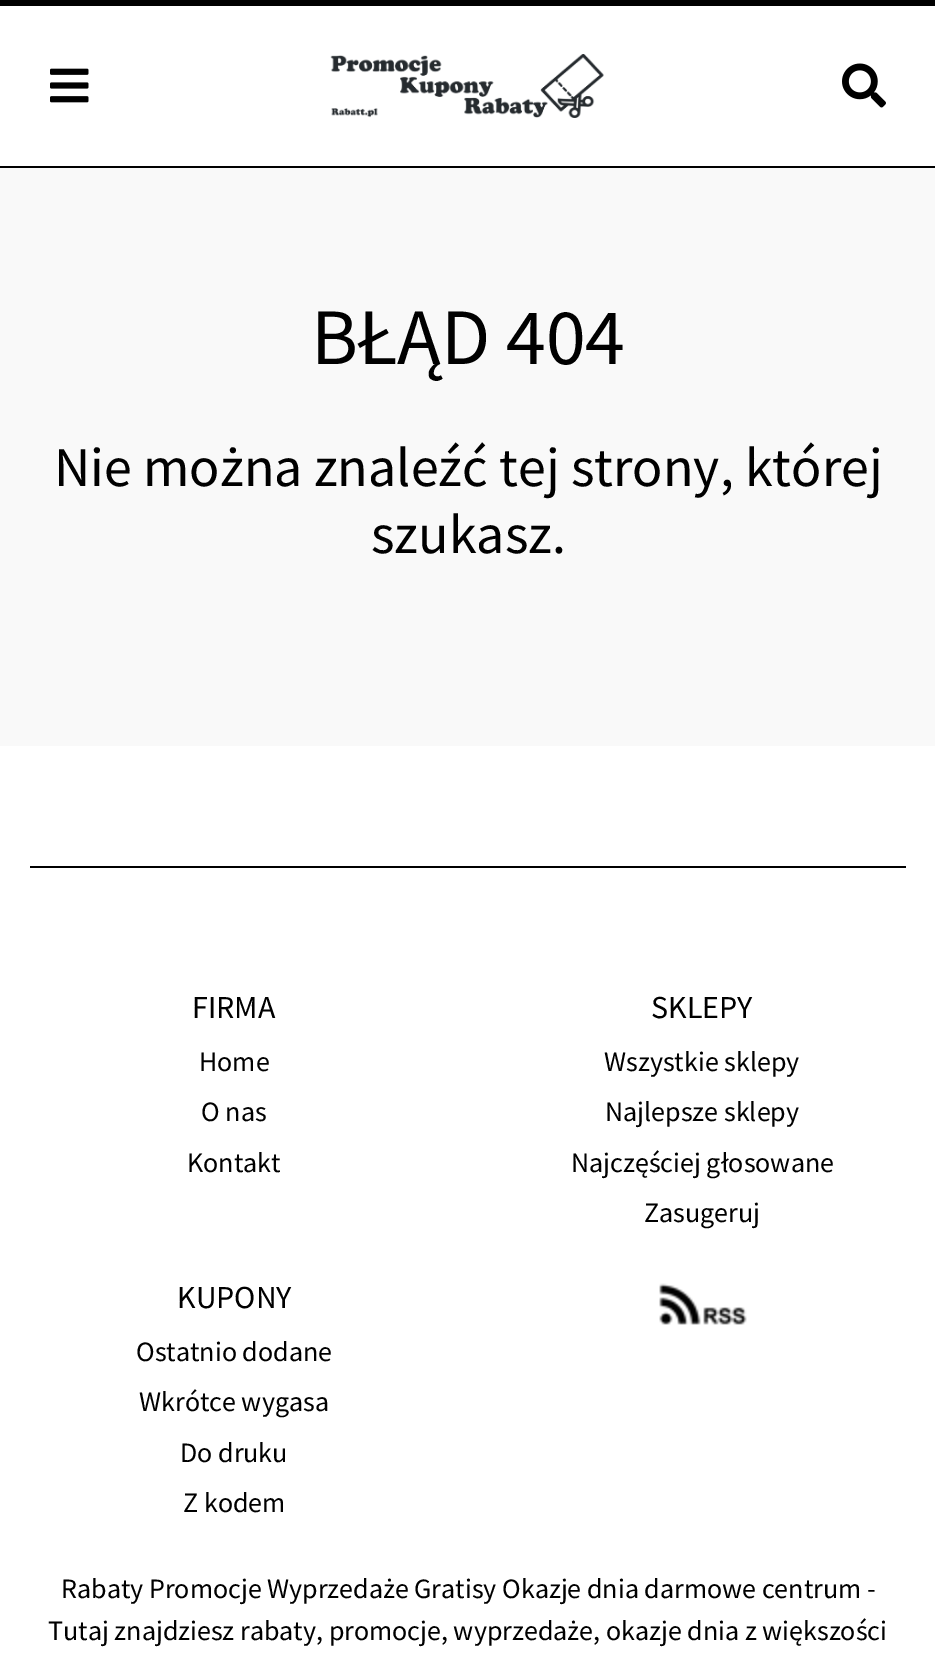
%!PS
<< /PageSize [935 1670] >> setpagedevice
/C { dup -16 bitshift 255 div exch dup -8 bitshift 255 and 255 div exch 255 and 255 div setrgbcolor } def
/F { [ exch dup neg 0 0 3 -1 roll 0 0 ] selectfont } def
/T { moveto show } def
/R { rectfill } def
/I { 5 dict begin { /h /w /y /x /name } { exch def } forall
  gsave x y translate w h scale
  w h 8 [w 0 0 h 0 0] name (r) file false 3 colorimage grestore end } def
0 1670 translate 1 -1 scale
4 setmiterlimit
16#F9F9F9 C
0 0 935 1670 R
16#FFFFFF C
0 6 935 160 R
16#000000 C
0 0 935 6 R
0 166 935 2 R
(1.rgb) 50 68 39 35 I
(2.rgb) 330 54 274 64 I
(3.rgb) 842 63 44 45 I
/SourceSansPro-Regular 80 F
(BŁĄD 404) 311 364 T
/SourceSansPro-Regular 56 F
(Nie można znaleźć tej strony, której) 54 486 T
(szukasz.) 371 553 T
16#FFFFFF C
0 746 935 924 R
16#000000 C
30 866 876 2 R
/SourceSansPro-Regular 32 F
(FIRMA) 192 1018 T
/SourceSansPro-Regular 28 F
(Home) 199 1071 T
(O nas) 201 1121 T
(Kontakt) 187 1172 T
/SourceSansPro-Regular 32 F
(SKLEPY) 651 1018 T
/SourceSansPro-Regular 28 F
(Wszystkie sklepy) 604 1071 T
(Najlepsze sklepy) 605 1121 T
(Najczęściej głosowane) 571 1172 T
(Zasugeruj) 644 1222 T
/SourceSansPro-Regular 32 F
(KUPONY) 177 1308 T
/SourceSansPro-Regular 28 F
(Ostatnio dodane) 136 1361 T
(Wkrótce wygasa) 139 1411 T
(Do druku) 180 1462 T
(Z kodem) 183 1512 T
(4.rgb) 659 1283 88 42 I
(Rabaty Promocje Wyprzedaże Gratisy Okazje dnia darmowe centrum -) 61 1598 T
(Tutaj znajdziesz rabaty, promocje, wyprzedaże, okazje dnia z większości) 48 1640 T
showpage
